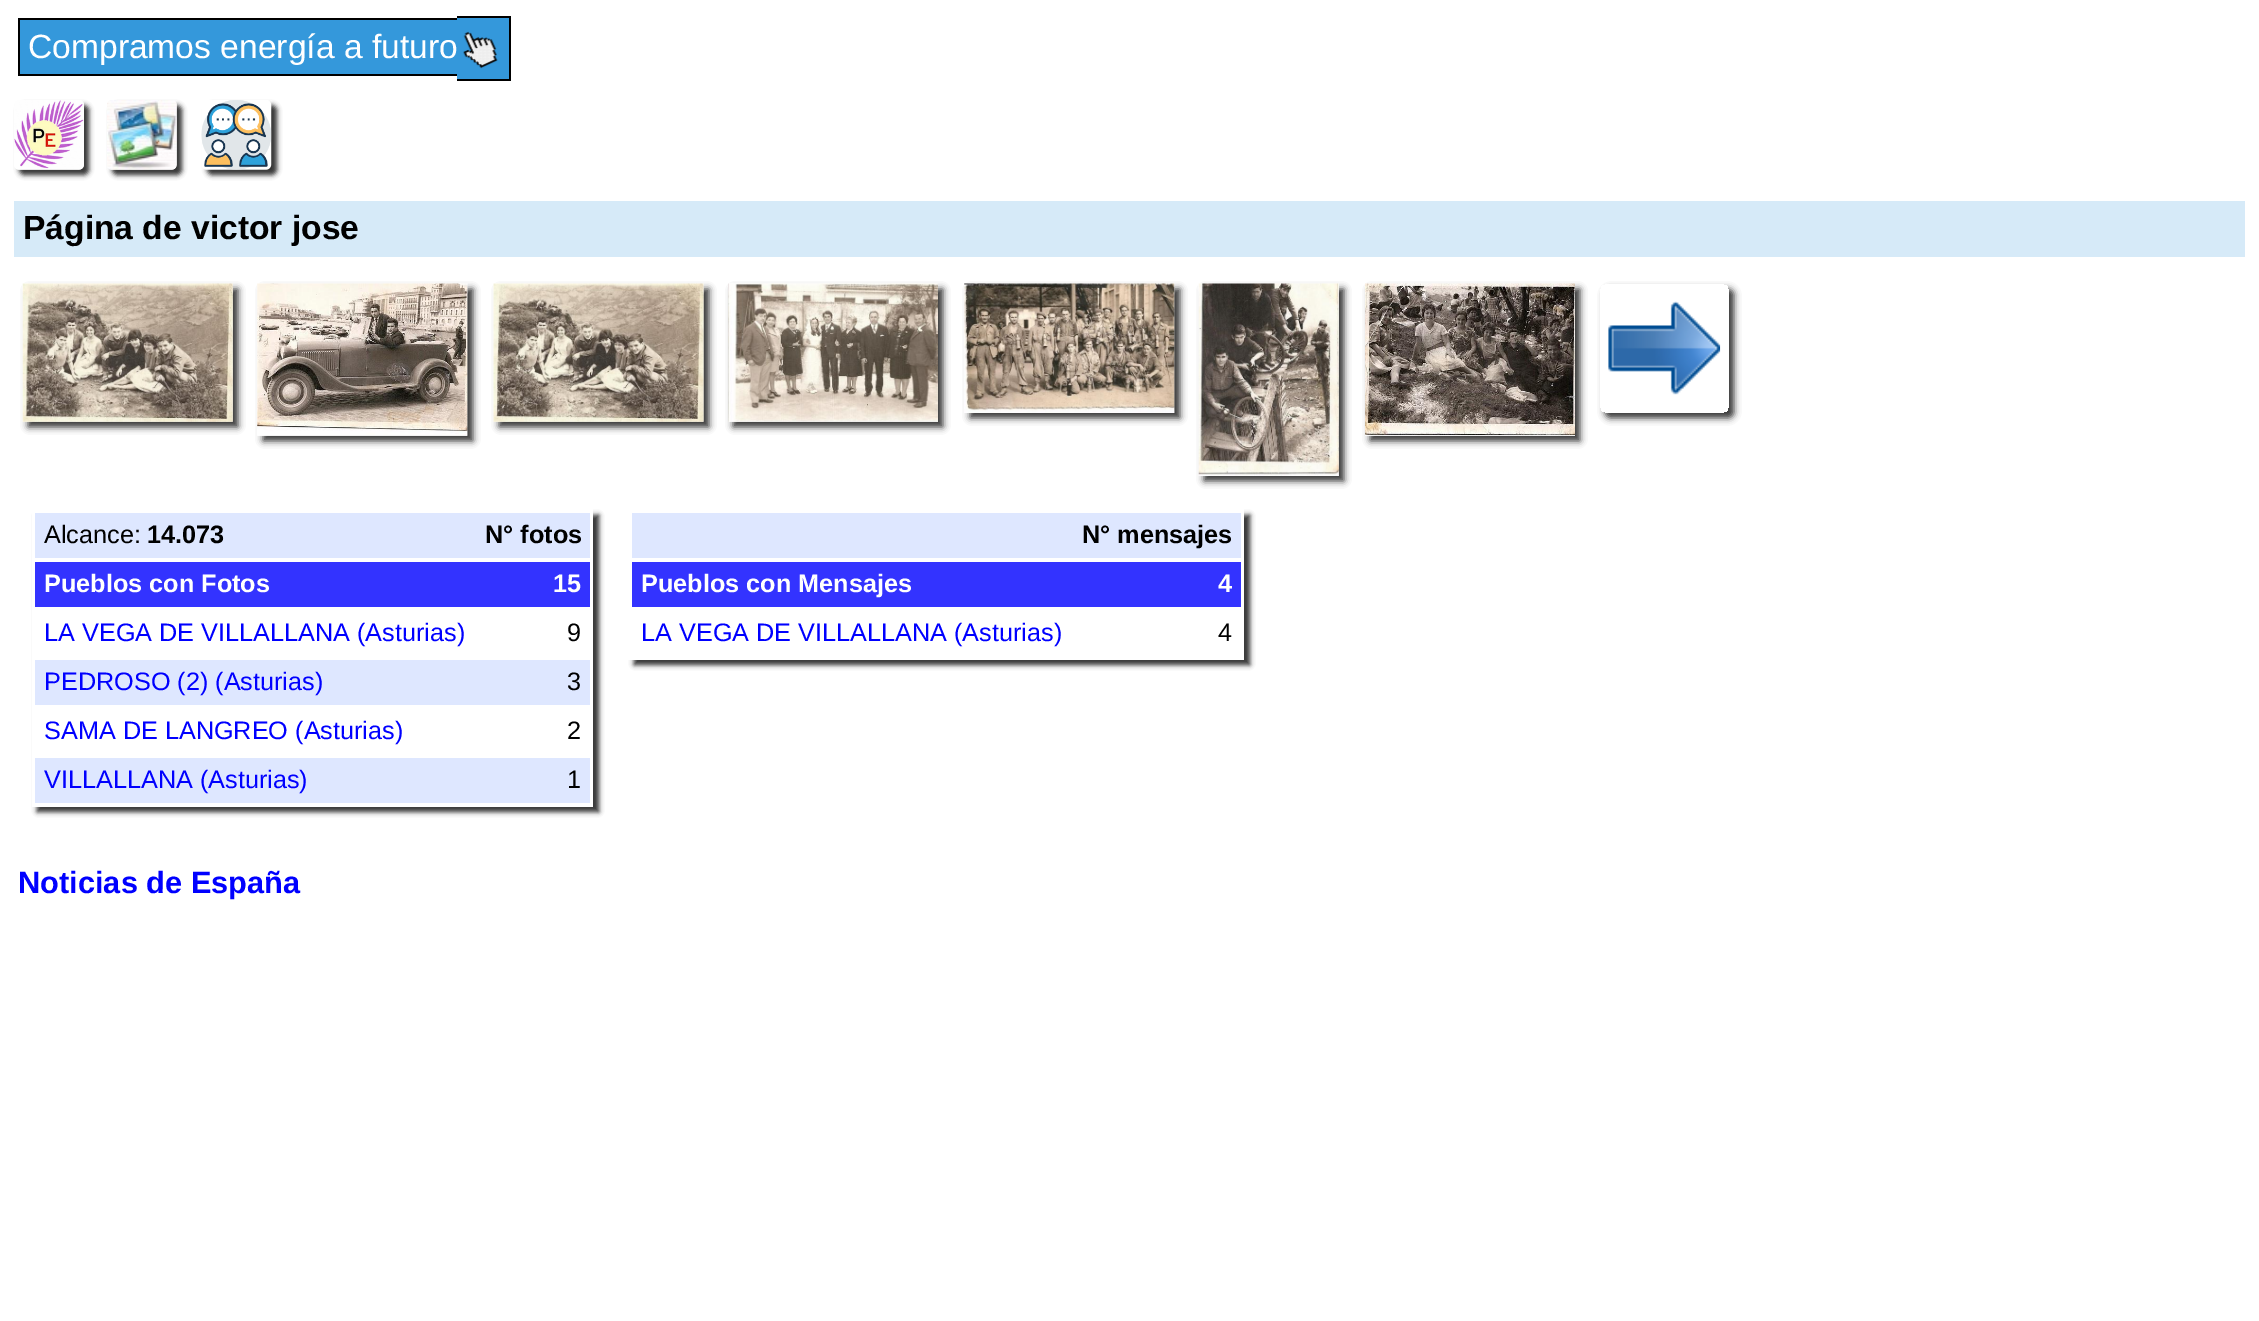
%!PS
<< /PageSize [2259 1321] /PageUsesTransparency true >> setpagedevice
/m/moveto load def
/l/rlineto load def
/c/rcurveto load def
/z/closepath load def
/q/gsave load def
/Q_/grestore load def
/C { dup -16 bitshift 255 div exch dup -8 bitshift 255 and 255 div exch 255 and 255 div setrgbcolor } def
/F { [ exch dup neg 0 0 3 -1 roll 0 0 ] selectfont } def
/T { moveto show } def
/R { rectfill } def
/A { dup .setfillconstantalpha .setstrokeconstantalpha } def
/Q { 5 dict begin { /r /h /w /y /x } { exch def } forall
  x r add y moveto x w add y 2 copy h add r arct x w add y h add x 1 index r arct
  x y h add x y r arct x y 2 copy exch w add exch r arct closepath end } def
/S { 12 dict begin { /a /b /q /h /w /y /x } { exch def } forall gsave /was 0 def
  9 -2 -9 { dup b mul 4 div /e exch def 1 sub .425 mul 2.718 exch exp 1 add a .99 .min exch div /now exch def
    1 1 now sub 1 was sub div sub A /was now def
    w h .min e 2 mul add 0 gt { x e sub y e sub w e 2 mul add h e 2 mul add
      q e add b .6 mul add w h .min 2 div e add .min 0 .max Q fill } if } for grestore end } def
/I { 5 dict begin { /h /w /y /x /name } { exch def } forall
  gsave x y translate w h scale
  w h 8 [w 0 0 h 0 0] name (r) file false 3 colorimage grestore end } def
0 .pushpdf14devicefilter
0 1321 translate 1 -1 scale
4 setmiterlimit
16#FFFFFF C
0 0 2259 1321 R
16#3498DB C
20 20 437 54 R
/LiberationSans-Regular 33.6 F
16#FFFFFF C
(Compramos energía a futuro) 28 58 T
16#000000 C
18 18 439 2 R
18 74 439 2 R
18 18 2 57 R
16#3498DB C
457 18 52 61 R
16#000000 C
457 16 54 2 R
509 16 2 65 R
457 79 54 2 R
(1.rgb) 463 31 35 38 I
16#333333 C
19 105 70 70 5 2.5 1 S
112 105 70 70 5 2.5 1 S
q
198 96 m 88 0 l 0 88 l -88 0 l z 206 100 m 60 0 l 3 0 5 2 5 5 c 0 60 l 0 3 -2 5 -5 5 c -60 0 l -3 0 -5 -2 -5 -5 c 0 -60 l 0 -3 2 -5 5 -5 c z eoclip newpath
207 105 70 70 5 2.5 1 S
Q_
(2.rgb) 14 100 70 70 I
(3.rgb) 107 100 70 70 I
(4.rgb) 201 100 71 70 I
16#D6EAF8 C
14 201 2231 56 R
/LiberationSans-Bold 33.6 F
16#000000 C
(Página de victor jose) 23 239 T
16#333333 C
28 289 210 138 0 3.5 1 S
(5.rgb) 22 283 211 139 I
263 289 210 152 0 3.5 1 S
(6.rgb) 257 283 211 153 I
499 289 210 138 0 3.5 1 S
(7.rgb) 493 283 211 139 I
733 289 210 138 0 3.5 1 S
(8.rgb) 728 283 210 139 I
970 289 210 129 0 3.5 1 S
(9.rgb) 964 283 211 130 I
1204 289 140 192 0 3.5 1 S
(10.rgb) 1198 283 141 193 I
1370 289 210 152 0 3.5 1 S
(11.rgb) 1365 283 210 153 I
q
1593 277 m 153 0 l 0 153 l -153 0 l z 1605 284 m 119 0 l 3 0 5 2 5 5 c 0 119 l 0 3 -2 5 -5 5 c -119 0 l -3 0 -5 -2 -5 -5 c 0 -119 l 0 -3 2 -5 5 -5 c z eoclip newpath
1605 289 129 129 5 3.5 1 S
Q_
(12.rgb) 1608 301 113 94 I
q
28 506 m 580 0 l 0 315 l -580 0 l z 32 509 m 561 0 l 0 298 l -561 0 l z eoclip newpath
37 515 562 297 0 2.5 1 S
Q_
16#DEE7FF C
35 513 555 45 R
/LiberationSans-Regular 25.25 F
16#000000 C
(Alcance:) 44 543 T
/LiberationSans-Bold 25.25 F
(14.073) 147 543 T
(N° fotos) 485 543 T
16#3333FF C
35 562 555 45 R
16#FFFFFF C
(Pueblos con Fotos) 44 592 T
(15) 553 592 T
/LiberationSans-Regular 25.25 F
16#0000FF C
(LA VEGA DE VILLALLANA \(Asturias\)) 44 641 T
16#000000 C
(9) 567 641 T
16#DEE7FF C
35 660 555 45 R
16#0000FF C
(PEDROSO \(2\) \(Asturias\)) 44 690 T
16#000000 C
(3) 567 690 T
16#0000FF C
(SAMA DE LANGREO \(Asturias\)) 44 739 T
16#000000 C
(2) 567 739 T
16#DEE7FF C
35 758 555 45 R
16#0000FF C
(VILLALLANA \(Asturias\)) 44 788 T
16#000000 C
(1) 567 788 T
q
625 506 m 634 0 l 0 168 l -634 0 l z 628 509 m 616 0 l 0 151 l -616 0 l z eoclip newpath
16#333333 C
634 515 616 150 0 2.5 1 S
Q_
16#DEE7FF C
632 513 609 45 R
/LiberationSans-Bold 25.25 F
16#000000 C
(N° mensajes) 1082 543 T
16#3333FF C
632 562 609 45 R
16#FFFFFF C
(Pueblos con Mensajes) 641 592 T
(4) 1218 592 T
/LiberationSans-Regular 25.25 F
16#0000FF C
(LA VEGA DE VILLALLANA \(Asturias\)) 641 641 T
16#000000 C
(4) 1218 641 T
/LiberationSans-Bold 30.75 F
16#0000FF C
(Noticias de España) 18 893 T
.poppdf14devicefilter showpage
